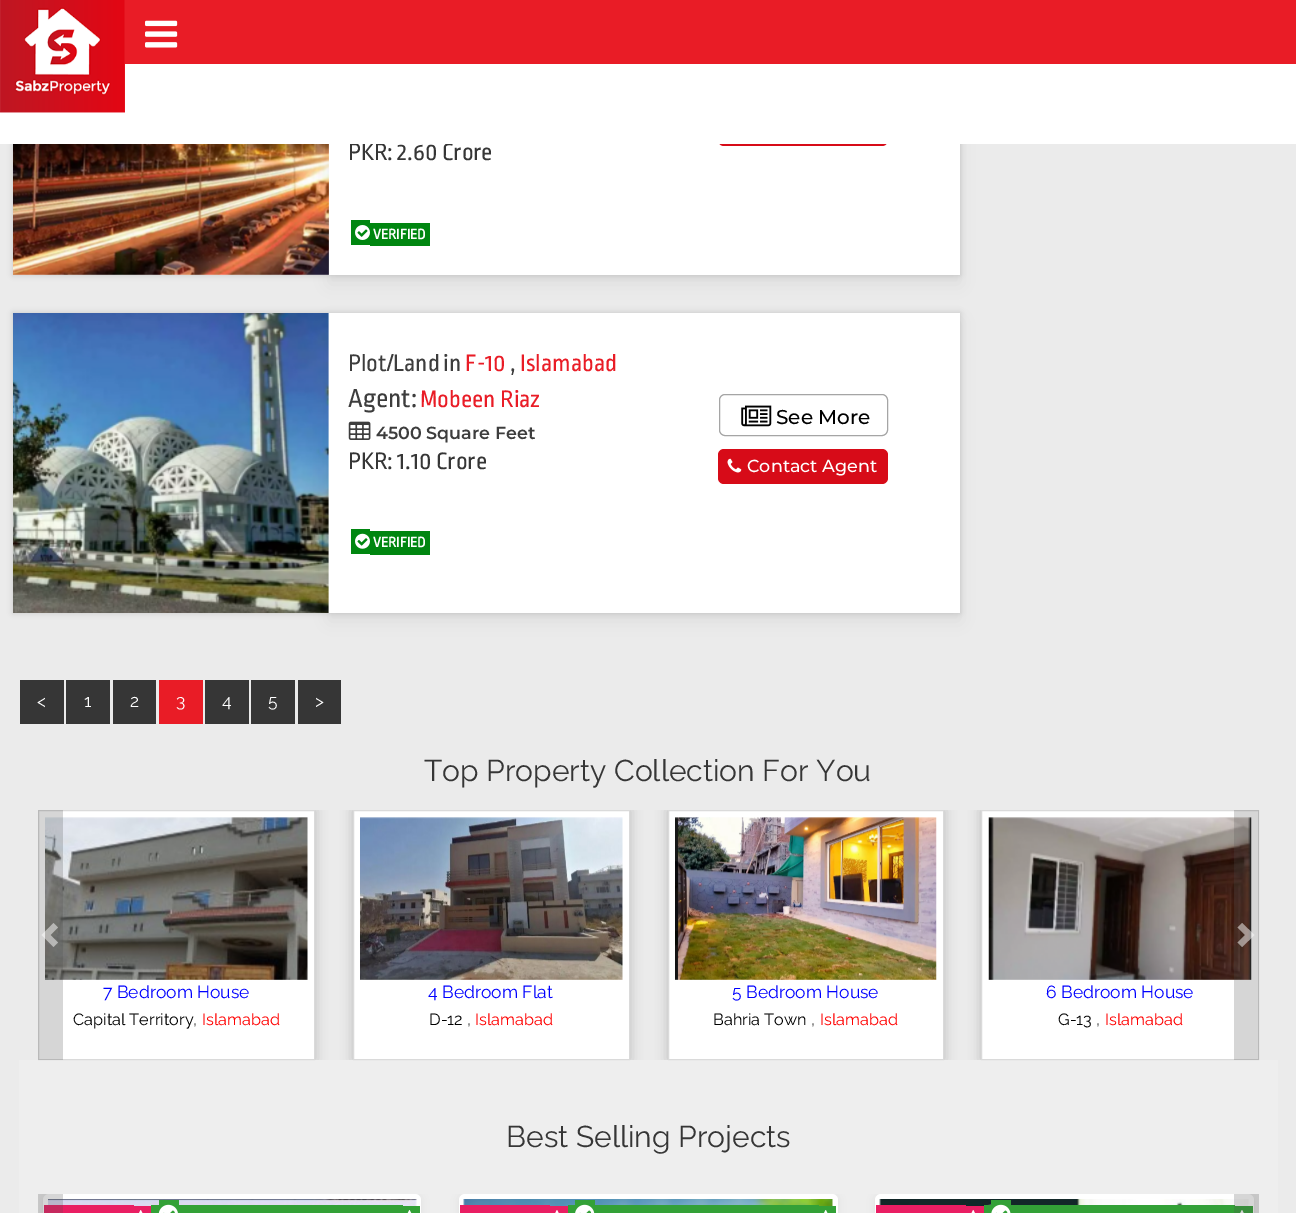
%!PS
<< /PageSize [1296 1213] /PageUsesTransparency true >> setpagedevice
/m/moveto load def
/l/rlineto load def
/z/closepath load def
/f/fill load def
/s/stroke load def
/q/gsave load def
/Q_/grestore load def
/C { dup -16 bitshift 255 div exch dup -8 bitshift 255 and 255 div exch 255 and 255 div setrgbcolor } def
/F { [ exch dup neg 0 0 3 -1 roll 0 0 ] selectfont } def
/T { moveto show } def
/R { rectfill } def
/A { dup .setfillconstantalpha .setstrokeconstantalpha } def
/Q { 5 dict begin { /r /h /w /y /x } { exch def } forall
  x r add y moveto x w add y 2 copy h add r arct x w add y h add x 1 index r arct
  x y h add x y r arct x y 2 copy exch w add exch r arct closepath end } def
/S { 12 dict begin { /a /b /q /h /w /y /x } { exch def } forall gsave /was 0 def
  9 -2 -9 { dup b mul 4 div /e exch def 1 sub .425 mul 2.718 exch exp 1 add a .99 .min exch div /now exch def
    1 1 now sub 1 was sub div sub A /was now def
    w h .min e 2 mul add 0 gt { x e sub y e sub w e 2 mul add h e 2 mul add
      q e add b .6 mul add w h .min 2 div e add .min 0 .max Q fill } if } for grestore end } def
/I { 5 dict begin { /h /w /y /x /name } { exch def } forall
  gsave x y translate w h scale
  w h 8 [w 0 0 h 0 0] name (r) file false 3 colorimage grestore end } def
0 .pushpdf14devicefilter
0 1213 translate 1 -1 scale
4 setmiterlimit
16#EBEBEB C
0 0 1296 1213 R
16#000000 C
13 -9 947 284 0 3 .15 S
(3.rgb) 13 144 316 131 I
329 -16 631 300 0 9 .06 S
16#FFFFFF C
329 144 631 131 R
16#D70B18 C
718 111 170 35 6 Q f
/RopaSans-Regular 25 F
16#363636 C
(PKR: 2.60 Crore) 348 160 T
16#FFFFFF C
0 64 1296 80 R
(1.rgb) 0 0 125 113 I
16#E91C26 C
125 0 1171 64 R
(2.rgb) 145 20 33 28 I
16#008610 C
351 220 19 25 R
370 223 60 23 R
(4.rgb) 355 225 15 15 I
/RopaSans-Bold 15 F
16#FFFFFF C
(VERIFIED) 373 239 T
16#000000 C
13 313 947 300 0 3 .15 S
16#FFFFFF C
328 313 1 300 R
(5.rgb) 13 313 316 300 I
16#000000 C
329 321 631 300 0 9 .06 S
16#FFFFFF C
329 313 631 300 R
/RopaSans-Regular 25 F
16#3D3D3D C
(Plot/Land) 348 371 T
(in) 443 371 T
16#E91C26 C
(F-10) 465 371 T
16#3D3D3D C
(,) 510 371 T
16#E91C26 C
(Islamabad) 520 371 T
/RopaSans-Regular 27.5 F
16#3D3D3D C
(Agent:) 348 407 T
/RopaSans-Regular 25 F
16#E91C26 C
(Mobeen Riaz) 420 407 T
(6.rgb) 348 421 23 19 I
/Montserrat-SemiBold 17.5 F
16#3D3D3D C
(4500 Square Feet) 376 439 T
/RopaSans-Regular 25 F
16#363636 C
(PKR: 1.10 Crore) 348 469 T
16#008610 C
351 529 19 25 R
370 531 60 24 R
(7.rgb) 355 533 15 16 I
/RopaSans-Bold 15 F
16#FFFFFF C
(VERIFIED) 373 547 T
16#A5A5A5 C
719.5 394.5 168 41 5.5 Q s
(8.rgb) 741 405 31 22 I
/Montserrat-Medium 20 F
16#000000 C
(See More) 776 424 T
16#D70B18 C
718 449 170 35 6 Q f
(9.rgb) 727 458 15 15 I
/Montserrat-Medium 17.5 F
16#FFFFFF C
(Contact Agent) 747 472 T
16#363636 C
20 680 44 44 R
/Raleway-Regular 17.5 F
16#FFFFFF C
(<) 37 707 T
16#363636 C
66 680 44 44 R
16#FFFFFF C
(1) 84 707 T
16#363636 C
113 680 43 44 R
16#FFFFFF C
(2) 130 707 T
16#E91C26 C
159 680 44 44 R
16#FFFFFF C
(3) 176 707 T
16#363636 C
205 680 44 44 R
16#FFFFFF C
(4) 222 707 T
16#363636 C
251 680 44 44 R
16#FFFFFF C
(5) 268 707 T
16#363636 C
298 680 43 44 R
16#FFFFFF C
(>) 315 707 T
/Raleway-Regular 30 F
16#363636 C
(Top Property Collection For You) 424 781 T
16#EEEEEE C
19 1060 1259 153 R
q
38 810 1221 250 rectclip
16#000000 C
38 810 277 250 0 6 .2 S
Q_
16#FFFFFF C
38.5 810.5 m 276 0 l 0 249 l -276 0 l z q f Q_
16#DADADA C
s
(10.rgb) 45 817 263 163 I
0.23 A
16#4D4D4D C
38 810 25 250 R
0.5 A
16#FFFFFF C
53.5 923 m -12 12 l 12 12 l 4.5 -4.5 l -7.5 -7.5 l 7.5 -7.5 l z f
/Raleway-Regular 17.5 F
1 A
16#0000FF C
(7 Bedroom House) 103 998 T
/Raleway-Regular 16.25 F
16#000000 C
(Capital Territory) 73 1025 T
/Raleway-Regular 17.5 F
16#3D3D3D C
(,) 193 1025 T
/Raleway-Regular 16.25 F
16#FF0000 C
(Islamabad) 202 1025 T
q
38 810 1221 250 rectclip
16#000000 C
353 810 277 250 0 6 .2 S
Q_
16#FFFFFF C
353.5 810.5 m 276 0 l 0 249 l -276 0 l z q f Q_
16#DADADA C
s
(11.rgb) 360 817 263 163 I
/Raleway-Regular 17.5 F
16#0000FF C
(4 Bedroom Flat) 428 998 T
/Raleway-Regular 16.25 F
16#000000 C
(D-12) 429 1025 T
/Raleway-Regular 17.5 F
16#3D3D3D C
(,) 467 1025 T
/Raleway-Regular 16.25 F
16#FF0000 C
(Islamabad) 475 1025 T
q
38 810 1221 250 rectclip
16#000000 C
668 810 276 250 0 6 .2 S
Q_
16#FFFFFF C
668.5 810.5 m 275 0 l 0 249 l -275 0 l z q f Q_
16#DADADA C
s
(12.rgb) 675 817 262 163 I
/Raleway-Regular 17.5 F
16#0000FF C
(5 Bedroom House) 732 998 T
/Raleway-Regular 16.25 F
16#000000 C
(Bahria Town) 713 1025 T
/Raleway-Regular 17.5 F
16#3D3D3D C
(,) 811 1025 T
/Raleway-Regular 16.25 F
16#FF0000 C
(Islamabad) 820 1025 T
q
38 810 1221 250 rectclip
16#000000 C
981 810 278 250 0 6 .2 S
Q_
16#FFFFFF C
981.5 810.5 m 277 0 l 0 249 l -277 0 l z q f Q_
16#DADADA C
s
(13.rgb) 988 817 264 163 I
/Raleway-Regular 17.5 F
16#0000FF C
(6 Bedroom House) 1046 998 T
/Raleway-Regular 16.25 F
16#000000 C
(G-13) 1058 1025 T
/Raleway-Regular 17.5 F
16#3D3D3D C
(,) 1096 1025 T
/Raleway-Regular 16.25 F
16#FF0000 C
(Islamabad) 1105 1025 T
0.23 A
16#4D4D4D C
1234 810 25 250 R
0.5 A
16#FFFFFF C
1242 923 m -4.5 4.5 l 7.5 7.5 l -7.5 7.5 l 4.5 4.5 l 12.5 -12 l z f
/Raleway-Regular 30 F
1 A
16#363636 C
(Best Selling Projects) 506 1147 T
q
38 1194 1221 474 rectclip
16#000000 C
43 1194 378 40 6 5 .06 S
Q_
16#FFFFFF C
43 1194 378 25 6 Q f
(14.rgb) 48 1199 369 7 I
16#E91E63 C
44 1205 90 8 R
134 1206 17 7 R
(15.rgb) 139 1210 4 3 I
16#33A137 C
151 1205 8 8 R
159 1200 20 13 R
179 1205 224 8 R
(16.rgb) 158 1204 20 9 I
403 1206 17 7 R
(17.rgb) 407 1210 5 3 I
q
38 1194 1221 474 rectclip
16#000000 C
459 1194 379 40 6 5 .06 S
Q_
16#FFFFFF C
459 1194 379 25 6 Q f
(18.rgb) 463 1199 370 7 I
16#E91E63 C
460 1205 90 8 R
550 1206 18 7 R
(19.rgb) 555 1210 4 3 I
16#33A137 C
568 1205 7 8 R
575 1200 20 13 R
595 1205 224 8 R
(20.rgb) 575 1204 20 9 I
819 1206 17 7 R
(21.rgb) 824 1210 4 3 I
q
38 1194 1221 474 rectclip
16#000000 C
875 1194 379 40 6 5 .06 S
Q_
16#FFFFFF C
875 1194 379 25 6 Q f
(22.rgb) 879 1199 370 7 I
16#E91E63 C
876 1205 90 8 R
966 1206 18 7 R
(23.rgb) 971 1210 4 3 I
16#33A137 C
984 1205 7 8 R
991 1200 20 13 R
1011 1205 224 8 R
(24.rgb) 991 1204 20 9 I
1235 1206 18 7 R
(25.rgb) 1240 1210 4 3 I
0.23 A
16#4D4D4D C
38 1194 25 19 R
1234 1194 25 19 R
.poppdf14devicefilter showpage
